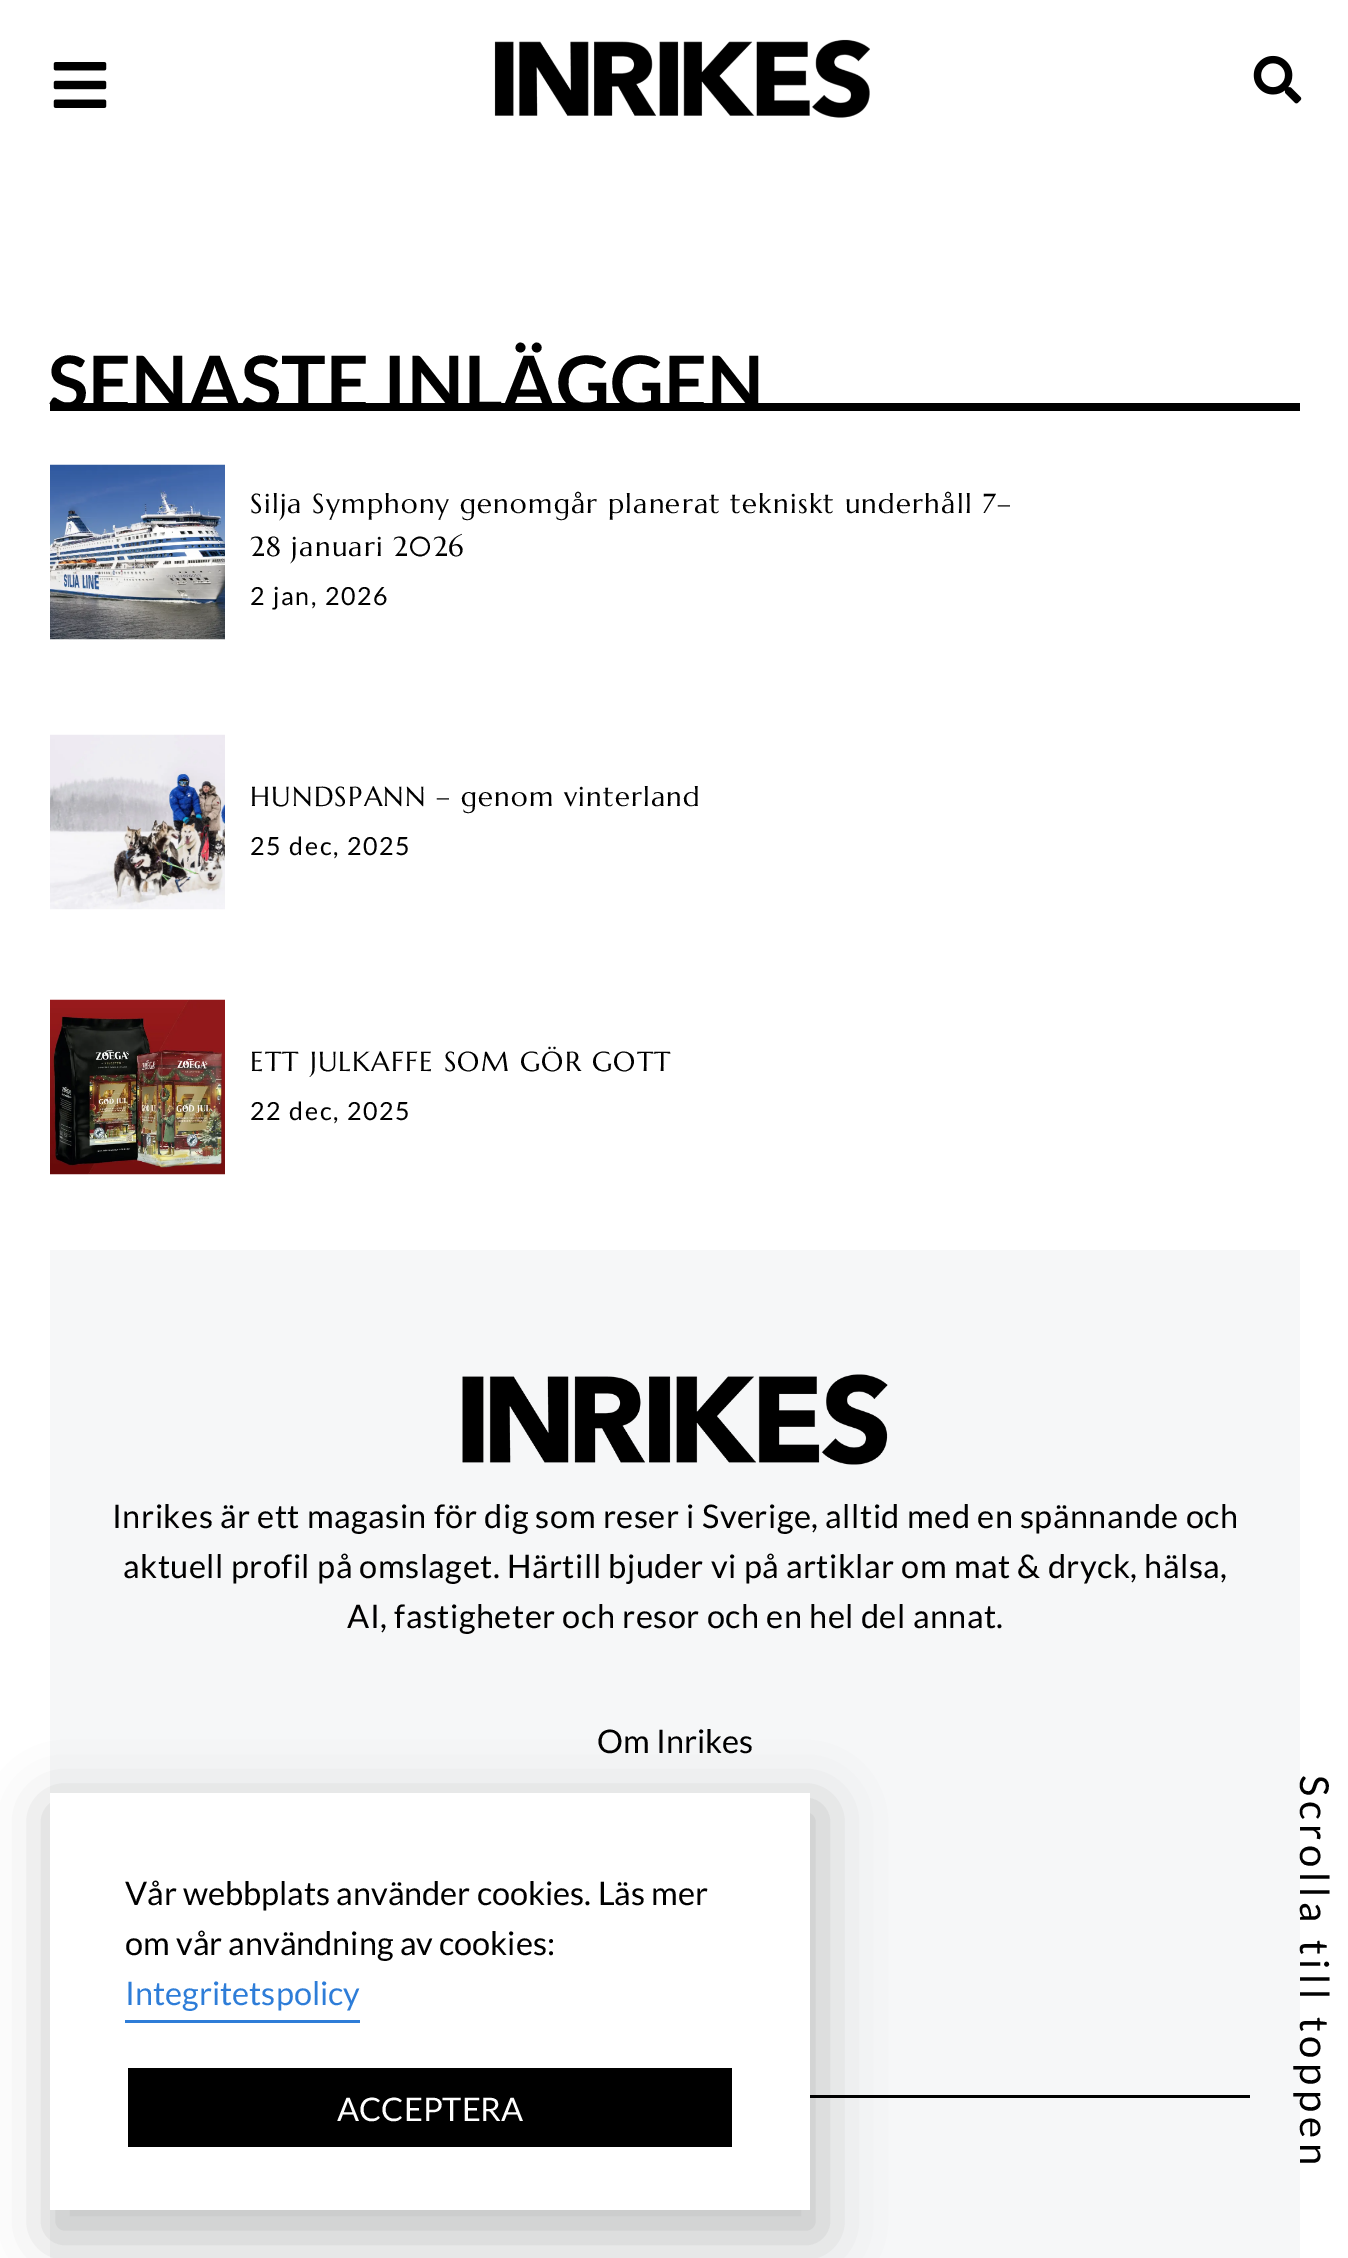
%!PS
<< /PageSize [1348 2258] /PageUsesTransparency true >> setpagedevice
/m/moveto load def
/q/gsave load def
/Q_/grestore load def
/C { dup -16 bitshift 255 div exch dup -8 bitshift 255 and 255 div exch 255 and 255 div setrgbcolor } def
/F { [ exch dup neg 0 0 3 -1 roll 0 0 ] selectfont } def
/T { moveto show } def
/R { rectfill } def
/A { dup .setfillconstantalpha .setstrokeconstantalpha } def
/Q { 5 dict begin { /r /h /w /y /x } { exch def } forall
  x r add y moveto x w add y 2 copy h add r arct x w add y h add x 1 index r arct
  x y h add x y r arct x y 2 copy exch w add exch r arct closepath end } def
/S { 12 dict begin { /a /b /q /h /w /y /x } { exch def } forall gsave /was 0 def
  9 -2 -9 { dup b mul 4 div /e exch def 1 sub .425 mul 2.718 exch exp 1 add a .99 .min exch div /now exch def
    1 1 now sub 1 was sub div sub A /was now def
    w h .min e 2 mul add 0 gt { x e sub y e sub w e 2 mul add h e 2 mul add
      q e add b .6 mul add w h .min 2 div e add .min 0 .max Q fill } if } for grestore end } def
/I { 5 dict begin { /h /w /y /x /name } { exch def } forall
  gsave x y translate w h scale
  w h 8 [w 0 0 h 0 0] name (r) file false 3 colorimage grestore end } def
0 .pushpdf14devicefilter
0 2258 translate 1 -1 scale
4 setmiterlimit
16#FFFFFF C
0 0 1348 2258 R
/Lato-Bold 75 F
16#000000 C
(SENASTE INLÄGGEN) 48 410 T
50 403 1250 8 R
(1.rgb) 50 464 175 176 I
/Marcellus-Regular 27.5 F
250 513 m 1.25 0 (Silja Symphony genomgår planerat tekniskt underhåll 7–) ashow
250 556 m 1.25 0 (28 januari 2026) ashow
/Lato-Regular 25 F
250 605 m 1.75 0 (2 jan, 2026) ashow
(2.rgb) 50 734 175 176 I
/Marcellus-Regular 27.5 F
250 806 m 1.25 0 (HUNDSPANN – genom vinterland) ashow
/Lato-Regular 25 F
250 855 m 1.75 0 (25 dec, 2025) ashow
(3.rgb) 50 999 175 176 I
/Marcellus-Regular 27.5 F
250 1071 m 1.25 0 (ETT JULKAFFE SOM GÖR GOTT) ashow
/Lato-Regular 25 F
250 1120 m 1.75 0 (22 dec, 2025) ashow
16#F6F7F8 C
50 1250 1250 840 R
(4.rgb) 462 1374 426 91 I
/Lato-Regular 32.5 F
16#000000 C
112 1528 m .5 0 (Inrikes är ett magasin för dig som reser i Sverige, alltid med en spännande och) ashow
123 1578 m .5 0 (aktuell profil på omslaget. Härtill bjuder vi på artiklar om mat & dryck, hälsa,) ashow
347 1628 m .5 0 (AI, fastigheter och resor och en hel del annat.) ashow
(Om Inrikes) 597 1753 T
16#F6F7F8 C
810 2090 490 13 R
16#000000 C
810 2095 440 3 R
16#F6F7F8 C
50 2103 1250 155 R
16#000000 C
48 1805 775 433 0 29 .2 S
16#FFFFFF C
50 1793 760 417 R
16#000000 C
(Vår webbplats använder cookies. Läs mer) 125 1905 T
(om vår användning av cookies:) 125 1955 T
16#2E7DD8 C
(Integritetspolicy) 125 2005 T
125 2020 235 3 R
16#000000 C
128 2068 604 79 R
16#FFFFFF C
(ACCEPTERA) 337 2121 T
(5.rgb) 53 62 54 46 I
(6.rgb) 494 39 376 79 I
(7.rgb) 1253 55 49 49 I
/Lato-Regular 40 F
16#000000 C
q 1300 1775 translate 90 rotate 0 0 m 4.75 0 (Scrolla till toppen) ashow Q_
.poppdf14devicefilter showpage
